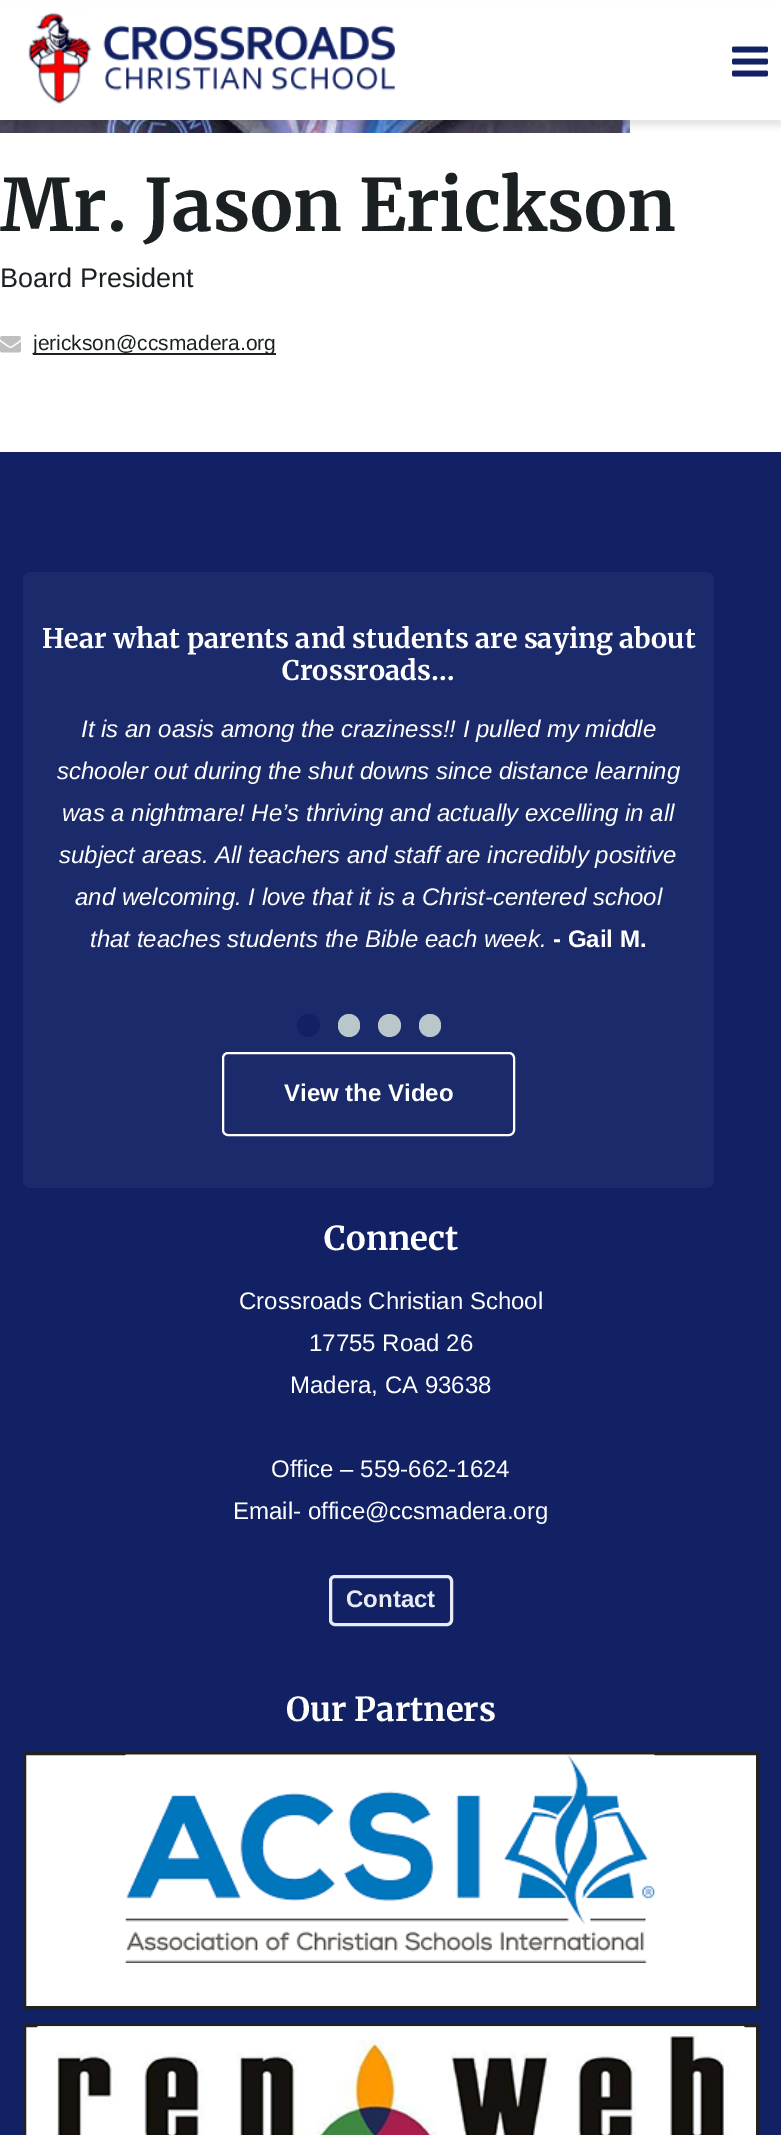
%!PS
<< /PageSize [781 2135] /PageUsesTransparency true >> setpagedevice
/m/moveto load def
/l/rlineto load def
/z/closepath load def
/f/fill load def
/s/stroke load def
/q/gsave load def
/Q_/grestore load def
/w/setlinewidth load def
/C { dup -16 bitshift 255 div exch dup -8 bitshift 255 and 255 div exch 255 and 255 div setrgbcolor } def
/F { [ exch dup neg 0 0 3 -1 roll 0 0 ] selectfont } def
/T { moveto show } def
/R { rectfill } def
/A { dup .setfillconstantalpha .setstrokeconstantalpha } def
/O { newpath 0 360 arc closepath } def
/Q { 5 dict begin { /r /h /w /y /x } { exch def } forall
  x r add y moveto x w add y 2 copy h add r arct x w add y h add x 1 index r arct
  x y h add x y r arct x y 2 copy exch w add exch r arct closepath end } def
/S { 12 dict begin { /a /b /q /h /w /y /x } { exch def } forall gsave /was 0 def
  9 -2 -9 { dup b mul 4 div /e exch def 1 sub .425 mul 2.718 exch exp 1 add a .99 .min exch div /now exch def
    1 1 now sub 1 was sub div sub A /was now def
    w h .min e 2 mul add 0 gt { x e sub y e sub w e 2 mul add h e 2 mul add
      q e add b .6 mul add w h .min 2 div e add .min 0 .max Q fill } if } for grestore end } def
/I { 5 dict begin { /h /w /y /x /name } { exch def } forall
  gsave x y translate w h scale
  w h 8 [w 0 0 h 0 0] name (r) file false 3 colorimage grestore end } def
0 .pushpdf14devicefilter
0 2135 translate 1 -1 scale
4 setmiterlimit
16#FFFFFF C
0 0 781 2135 R
(3.rgb) 0 120 630 13 I
16#000000 C
0 6 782 120 0 3 .1 S
16#FFFFFF C
0 2 781 118 R
(1.rgb) 28 12 367 92 I
(2.rgb) 732 46 36 31 I
/Merriweather-Bold 72 F
16#1B2123 C
(Mr. Jason Erickson) 0 231 T
/LiberationSans-Regular 27 F
(Board President) 0 287 T
(4.rgb) 0 336 21 17 I
33 353 243 2 R
/LiberationSans-Regular 21 F
(jerickson@ccsmadera.org) 33 350 T
16#112163 C
0 452 781 1683 R
16#1B2A6A C
23 572 691 616 8 Q f
/Merriweather-Bold 27 F
16#FFFFFF C
(Hear what parents and students are saying about) 42 648 T
(Crossroads…) 282 680 T
/LiberationSans-Italic 24 F
(It is an oasis among the craziness!! I pulled my middle) 81 737 T
(schooler out during the shut downs since distance learning) 57 779 T
(was a nightmare! He’s thriving and actually excelling in all) 62 821 T
(subject areas. All teachers and staff are incredibly positive) 59 863 T
(and welcoming. I love that it is a Christ-centered school) 75 905 T
(that teaches students the Bible each week.) 90 947 T
/LiberationSans-Bold 24 F
(- Gail M.) 553 947 T
16#112163 C
308.5 1025.5 11.5 O f
16#BAC7CA C
338 1014 22 23 11 Q f
389.5 1025.5 11.5 O f
419 1014 22 23 11 Q f
16#FFFFFF C
2 w
223 1053 291 82 5 Q s
(View the Video) 284 1101 T
/Merriweather-Bold 33 F
(Connect) 324 1250 T
/LiberationSans-Regular 24 F
(Crossroads Christian School) 239 1309 T
(17755 Road 26) 309 1351 T
(Madera, CA 93638) 290 1393 T
(Office – 559-662-1624) 271 1477 T
(Email- office@ccsmadera.org) 233 1519 T
16#E9EBF4 C
3 w
330.5 1576.5 121 48 4.5 Q s
/LiberationSans-Bold 24 F
(Contact) 346 1607 T
/Merriweather-Bold 33 F
16#FFFFFF C
(Our Partners) 286 1721 T
24.5 1753.5 m 733 0 l 0 254 l -733 0 l z q f Q_
16#222222 C
s
(5.rgb) 125 1754 530 209 I
16#FFFFFF C
24.5 2025.5 m 733 0 l 0 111 l -733 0 l z q f Q_
16#222222 C
s
(6.rgb) 37 2026 708 109 I
.poppdf14devicefilter showpage
